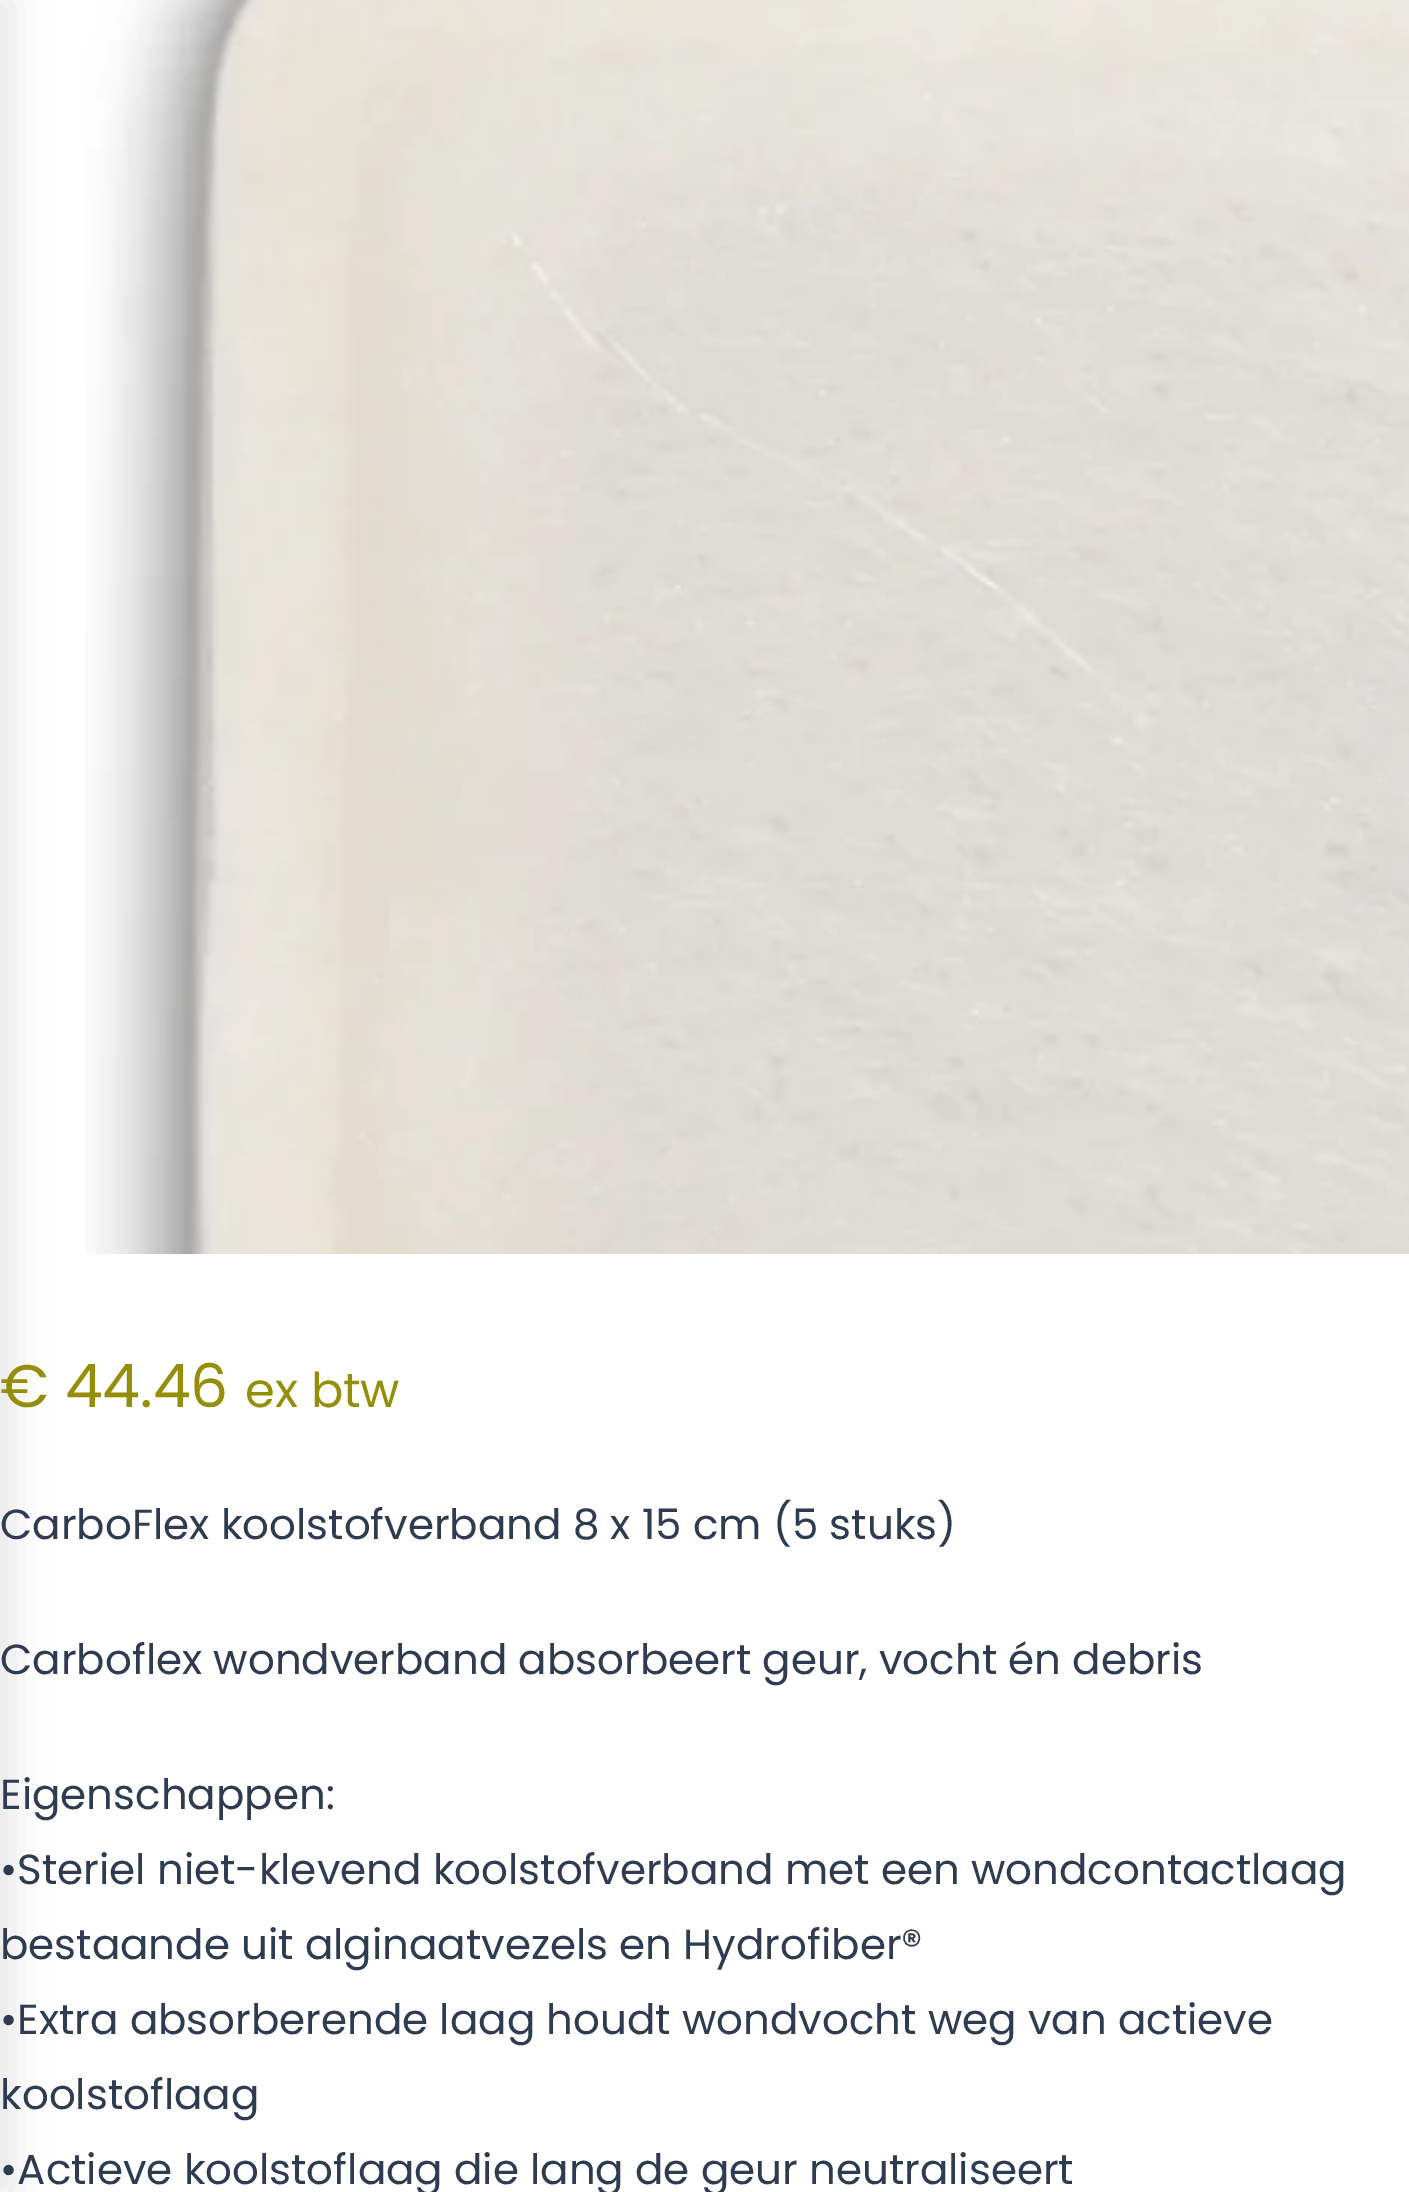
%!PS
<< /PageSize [1409 2192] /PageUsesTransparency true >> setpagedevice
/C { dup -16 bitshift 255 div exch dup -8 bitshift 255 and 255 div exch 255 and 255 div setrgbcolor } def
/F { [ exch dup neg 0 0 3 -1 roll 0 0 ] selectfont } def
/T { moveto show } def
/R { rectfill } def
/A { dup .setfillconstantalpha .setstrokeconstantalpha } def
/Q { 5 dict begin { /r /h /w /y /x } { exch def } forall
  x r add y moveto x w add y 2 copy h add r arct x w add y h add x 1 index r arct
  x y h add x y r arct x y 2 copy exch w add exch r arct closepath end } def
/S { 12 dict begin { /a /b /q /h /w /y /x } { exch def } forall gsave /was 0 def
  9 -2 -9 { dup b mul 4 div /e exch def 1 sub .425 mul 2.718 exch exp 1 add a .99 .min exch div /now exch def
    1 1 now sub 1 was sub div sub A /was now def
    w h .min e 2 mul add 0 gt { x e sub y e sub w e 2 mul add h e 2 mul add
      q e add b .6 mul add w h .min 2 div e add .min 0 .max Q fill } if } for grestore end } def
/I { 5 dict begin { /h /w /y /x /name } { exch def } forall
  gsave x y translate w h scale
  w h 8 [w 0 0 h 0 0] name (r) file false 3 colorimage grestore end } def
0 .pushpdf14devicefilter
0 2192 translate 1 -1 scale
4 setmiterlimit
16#FFFFFF C
0 0 1409 2192 R
16#000000 C
-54 0 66 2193 0 18 .1 S
(1.rgb) 85 0 1324 1254 I
/Poppins-Regular 60 F
16#958E09 C
(€ 44.46) 0 1407 T
/Poppins-Regular 48 F
(ex btw) 245 1407 T
/Poppins-Regular 42 F
16#2E3B51 C
(CarboFlex koolstofverband 8 x 15 cm \(5 stuks\)) 0 1539 T
(Carboflex wondverband absorbeert geur, vocht én debris) 0 1674 T
(Eigenschappen:) 0 1809 T
(•Steriel niet-klevend koolstofverband met een wondcontactlaag) 0 1884 T
(bestaande uit alginaatvezels en Hydrofiber®) 0 1959 T
(•Extra absorberende laag houdt wondvocht weg van actieve) 0 2034 T
(koolstoflaag) 0 2109 T
(•Actieve koolstoflaag die lang de geur neutraliseert) 0 2184 T
.poppdf14devicefilter showpage
